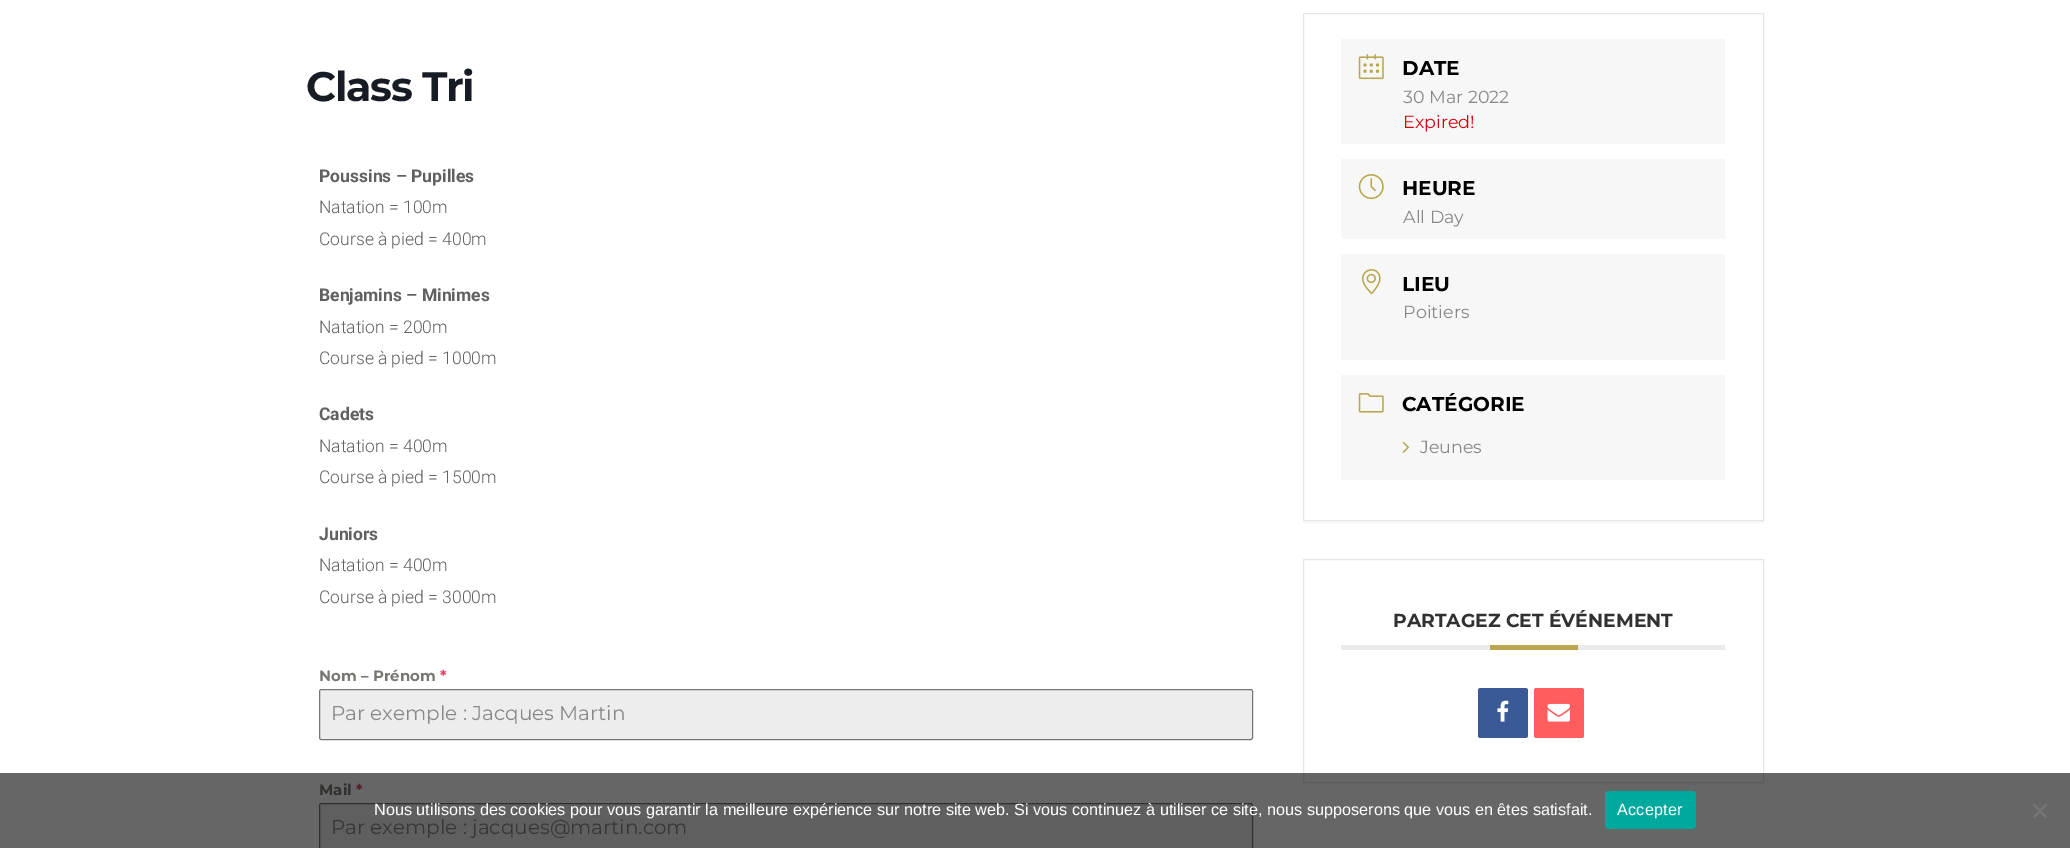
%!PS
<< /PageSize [2070 848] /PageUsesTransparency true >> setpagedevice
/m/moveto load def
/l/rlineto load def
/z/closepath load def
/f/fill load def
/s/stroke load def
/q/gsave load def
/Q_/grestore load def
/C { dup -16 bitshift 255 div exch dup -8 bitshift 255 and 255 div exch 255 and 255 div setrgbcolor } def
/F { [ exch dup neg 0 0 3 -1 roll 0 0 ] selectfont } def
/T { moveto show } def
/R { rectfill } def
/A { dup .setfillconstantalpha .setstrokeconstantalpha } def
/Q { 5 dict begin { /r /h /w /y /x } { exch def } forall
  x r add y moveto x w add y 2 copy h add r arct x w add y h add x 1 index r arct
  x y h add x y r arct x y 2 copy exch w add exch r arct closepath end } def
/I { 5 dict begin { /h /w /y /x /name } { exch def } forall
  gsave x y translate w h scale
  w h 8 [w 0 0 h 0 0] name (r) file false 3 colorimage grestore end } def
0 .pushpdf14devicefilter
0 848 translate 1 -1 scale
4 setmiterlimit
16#FFFFFF C
0 0 2070 848 R
/Montserrat-Bold 41.25 F
16#171C24 C
306 101 m -1.25 0 (Class Tri) ashow
/Roboto-Bold 17.5 F
16#616161 C
(Poussins – Pupilles) 319 182 T
/Roboto-Light 17.5 F
(Natation = 100m) 319 213 T
(Course à pied = 400m) 319 245 T
/Roboto-Bold 17.5 F
(Benjamins – Minimes) 319 301 T
/Roboto-Light 17.5 F
(Natation = 200m) 319 333 T
(Course à pied = 1000m) 319 364 T
/Roboto-Bold 17.5 F
(Cadets) 319 420 T
/Roboto-Light 17.5 F
(Natation = 400m) 319 452 T
(Course à pied = 1500m) 319 483 T
/Roboto-Bold 17.5 F
(Juniors) 319 540 T
/Roboto-Light 17.5 F
(Natation = 400m) 319 571 T
(Course à pied = 3000m) 319 603 T
/Montserrat-Bold 15 F
16#777771 C
(Nom – Prénom) 319 681 T
16#E04562 C
(*) 440 681 T
16#EDEDED C
319.5 689.5 933 50 2 Q q f Q_
16#777771 C
s
/Montserrat-Regular 20 F
16#888888 C
(Par exemple : Jacques Martin) 331 720 T
/Montserrat-Bold 15 F
16#777771 C
(Mail) 319 795 T
16#E04562 C
(*) 356 795 T
16#EDEDED C
319.5 803.5 933 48 2 Q q f Q_
16#777771 C
s
/Montserrat-Regular 20 F
16#888888 C
(Par exemple : jacques@martin.com) 331 834 T
16#FBFBFB C
1303 521 m 0 3 l 461 0 l 0 -509 l 0 506 l z f
16#E6E6E6 C
1303.5 13.5 460 507 rectstroke
16#F7F7F7 C
1341 39 384 105 R
(1.rgb) 1358 54 26 26 I
/Montserrat-Bold 20 F
16#000000 C
(DATE) 1402 75 T
/Montserrat-Regular 17.5 F
16#888888 C
(30 Mar 2022) 1403 103 T
16#D8000C C
(Expired!) 1403 128 T
16#F7F7F7 C
1341 159 384 80 R
(2.rgb) 1358 174 26 26 I
/Montserrat-Bold 20 F
16#000000 C
(HEURE) 1402 195 T
/Montserrat-Regular 17.5 F
16#888888 C
(All Day) 1403 223 T
16#F7F7F7 C
1341 254 384 106 R
(3.rgb) 1361 269 20 25 I
/Montserrat-Bold 20 F
16#000000 C
(LIEU) 1402 291 T
/Montserrat-Regular 17.5 F
16#888888 C
(Poitiers) 1403 318 T
16#F7F7F7 C
1341 375 384 105 R
(4.rgb) 1358 393 26 20 I
/Montserrat-Bold 20 F
16#000000 C
(CATÉGORIE) 1402 411 T
(5.rgb) 1402 441 8 12 I
/Montserrat-Regular 17.5 F
16#888888 C
(Jeunes) 1420 453 T
16#FBFBFB C
1303 782 m 0 3 l 461 0 l 0 -224 l 0 221 l z f
16#E6E6E6 C
1303.5 559.5 460 223 rectstroke
16#EBEBEB C
1341 645 384 5 R
/Montserrat-Bold 18.75 F
16#313131 C
(PARTAGEZ CET ÉVÉNEMENT) 1393 627 T
16#B9A64D C
1490 645 88 5 R
16#3B5996 C
1478 688 50 50 2.5 Q f
(6.rgb) 1497 700 12 22 I
16#FF5D5E C
1534 688 50 50 2.5 Q f
(7.rgb) 1547 703 23 19 I
0.6 A
16#000000 C
0 773 2070 75 R
/LiberationSans-Regular 16.25 F
1 A
16#FFFFFF C
(Nous utilisons des cookies pour vous garantir la meilleure expérience sur notre site web. Si vous continuez à utiliser ce site, nous supposerons que vous en êtes satisfait.) 374 815 T
16#00A99D C
1605 791 91 38 4 Q f
16#FFFFFF C
1617 815 m .25 0 (Accepter) ashow
16#737373 C
2045.5 803.5 m 2 1.5 l -13 13.5 l -2 -2 l z f
2032.5 805 m 2 -1.5 l 13 13 l -2 2 l z f
.poppdf14devicefilter showpage
